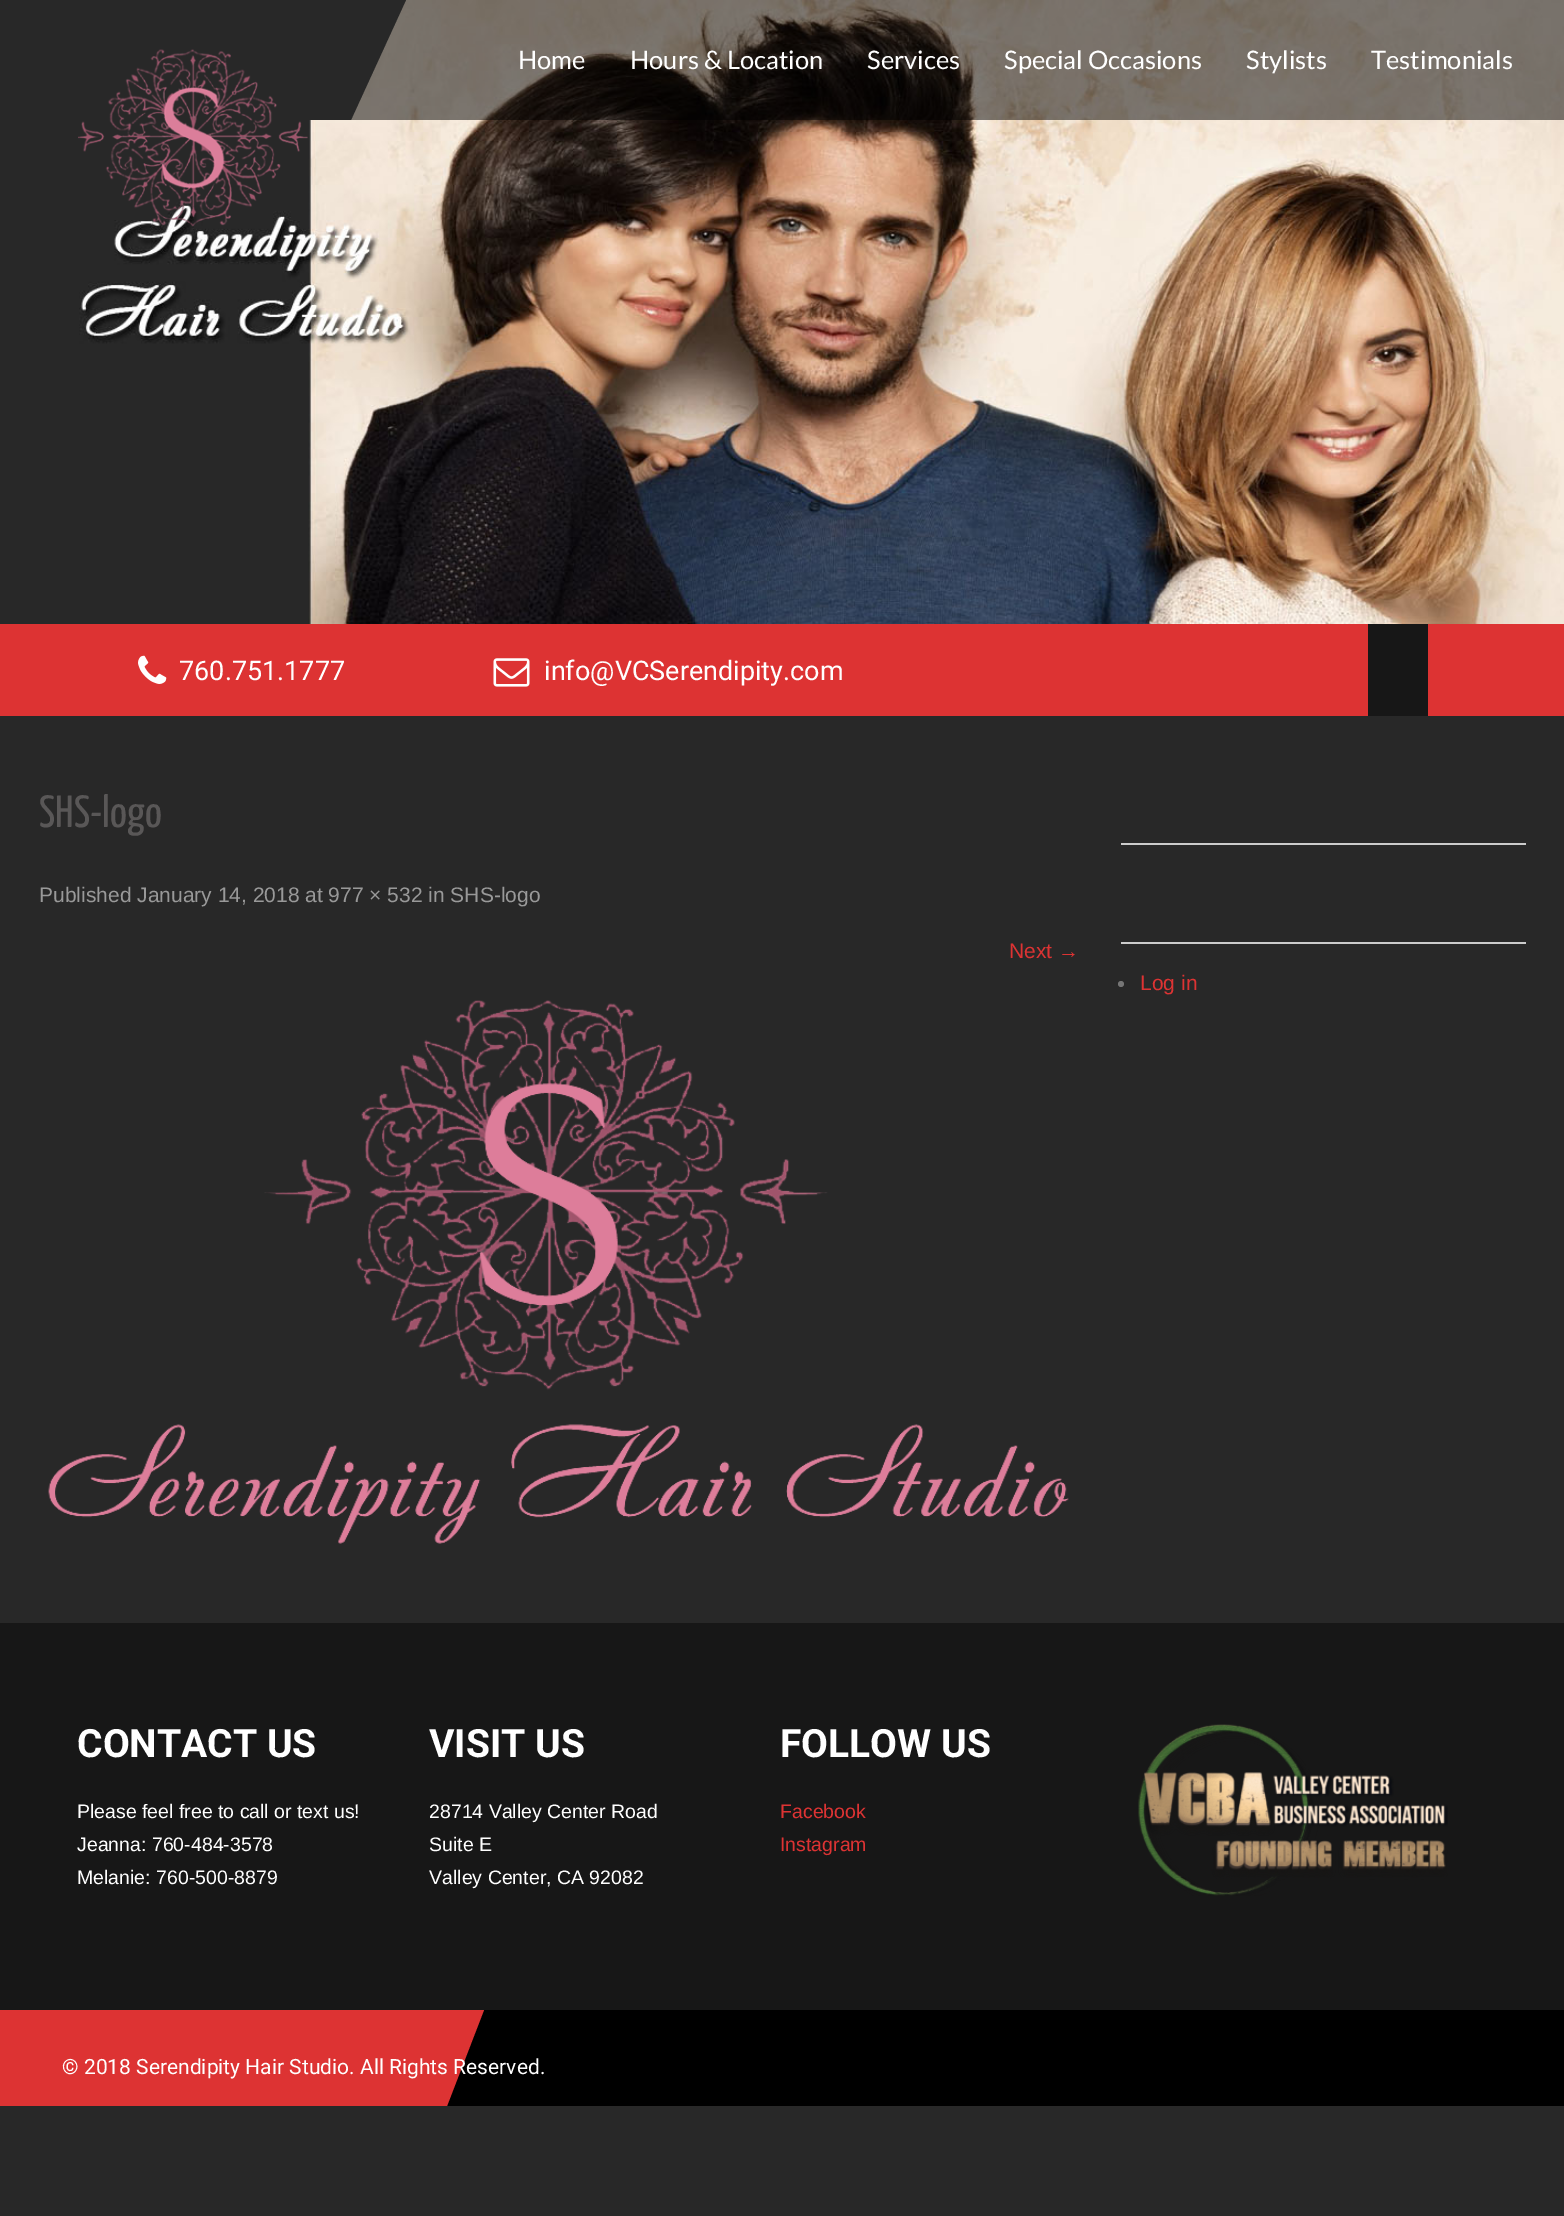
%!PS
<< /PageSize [1564 2216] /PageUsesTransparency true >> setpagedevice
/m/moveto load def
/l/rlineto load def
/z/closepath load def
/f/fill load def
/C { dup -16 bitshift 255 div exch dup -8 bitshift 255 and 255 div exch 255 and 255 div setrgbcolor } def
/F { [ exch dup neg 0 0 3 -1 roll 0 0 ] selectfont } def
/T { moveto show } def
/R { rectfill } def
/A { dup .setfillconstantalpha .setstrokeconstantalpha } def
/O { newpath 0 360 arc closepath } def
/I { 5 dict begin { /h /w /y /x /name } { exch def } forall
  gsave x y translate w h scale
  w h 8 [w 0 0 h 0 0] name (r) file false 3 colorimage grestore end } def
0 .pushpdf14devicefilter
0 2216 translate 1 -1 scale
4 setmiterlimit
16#282828 C
0 0 1564 2216 R
(1.rgb) 79 0 1485 624 I
0.5 A
16#000000 C
351 0 1213 120 R
1 A
16#282828 C
0 0 m 406 0 l -55 120 l -351 0 l z f
(2.rgb) 78 49 230 178 I
/Lato-Regular 25.5 F
16#FFFFFF C
(Home) 518 69 T
(Hours & Location) 630 69 T
(Services) 867 69 T
(Special Occasions) 1004 69 T
(Stylists) 1246 69 T
(Testimonials) 1371 69 T
16#DD3333 C
0 624 1564 92 R
(3.rgb) 138 655 29 29 I
/Roboto-Regular 27 F
16#FFFFFF C
(760.751.1777) 179 680 T
(4.rgb) 493 658 37 29 I
(info@VCSerendipity.com) 544 680 T
16#171717 C
1368 624 60 92 R
/YanoneKaffeesatz-ExtraLight 45 F
16#595757 C
(SHS-logo) 39 827 T
/Arimo-Regular 21 F
16#999999 C
(Published January 14, 2018 at 977 × 532 in SHS-logo) 39 902 T
16#DD3333 C
(Next) 1009 958 T
/LiberationSerif-Regular 21 F
(→) 1058 958 T
(5.rgb) 48 1000 1021 544 I
16#CCCCCC C
1121 843 405 2 R
1121 942 405 2 R
16#757575 C
1121 984 3 O f
/Arimo-Regular 21 F
16#DD3333 C
(Log in) 1140 990 T
16#171717 C
0 1623 1564 387 R
/Roboto-Bold 39 F
16#FFFFFF C
(CONTACT US) 77 1757 T
/Arimo-Regular 19.5 F
(Please feel free to call or text us!) 77 1818 T
(Jeanna: 760-484-3578) 77 1851 T
(Melanie: 760-500-8879) 77 1884 T
/Roboto-Bold 39 F
(VISIT US) 429 1757 T
/Arimo-Regular 19.5 F
(28714 Valley Center Road) 429 1818 T
(Suite E) 429 1851 T
(Valley Center, CA 92082) 429 1884 T
/Roboto-Bold 39 F
(FOLLOW US) 780 1757 T
/Arimo-Regular 19.5 F
16#DD3333 C
(Facebook) 780 1818 T
(Instagram) 780 1851 T
(6.rgb) 1138 1724 310 172 I
16#000000 C
447 2010 1117 96 R
16#DD3333 C
0 2010 m 484 0 l -37 96 l -447 0 l z f
/Roboto-Regular 21 F
16#FFFFFF C
(© 2018 Serendipity Hair Studio. All Rights Reserved.) 62 2074 T
.poppdf14devicefilter showpage
